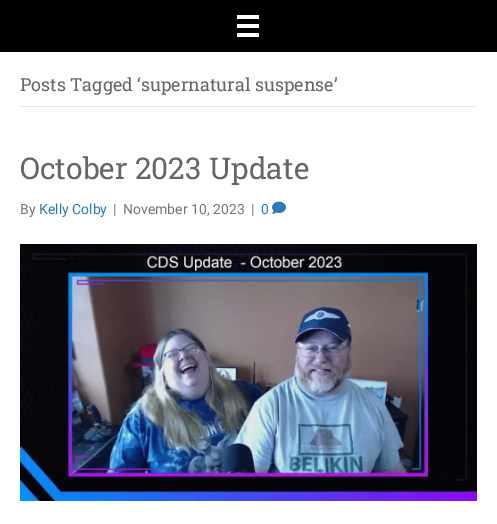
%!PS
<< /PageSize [497 524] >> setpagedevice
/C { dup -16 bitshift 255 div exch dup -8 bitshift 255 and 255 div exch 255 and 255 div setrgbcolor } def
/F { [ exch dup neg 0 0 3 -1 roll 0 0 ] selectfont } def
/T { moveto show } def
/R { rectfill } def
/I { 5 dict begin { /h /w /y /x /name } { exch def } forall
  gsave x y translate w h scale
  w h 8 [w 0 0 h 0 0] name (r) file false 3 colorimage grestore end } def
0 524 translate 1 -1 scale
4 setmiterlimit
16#FFFFFF C
0 0 497 524 R
16#000000 C
0 0 497 52 R
16#FFFFFF C
237 15 22 4 R
237 24 22 4 R
237 33 22 4 R
16#E6E6E6 C
20 106 457 1 R
/RobotoSlab-Regular 18 F
16#666666 C
(Posts Tagged ‘supernatural suspense’) 20 91 T
/RobotoSlab-Regular 30 F
(October 2023 Update) 20 179 T
/Roboto-Regular 14 F
16#757575 C
(By) 20 214 T
16#2B7BB9 C
(Kelly Colby) 39 214 T
16#757575 C
(|) 113 214 T
(November 10, 2023) 123 214 T
(|) 251 214 T
16#2B7BB9 C
(0) 261 214 T
(1.rgb) 272 201 14 13 I
(2.rgb) 20 244 457 257 I
showpage
